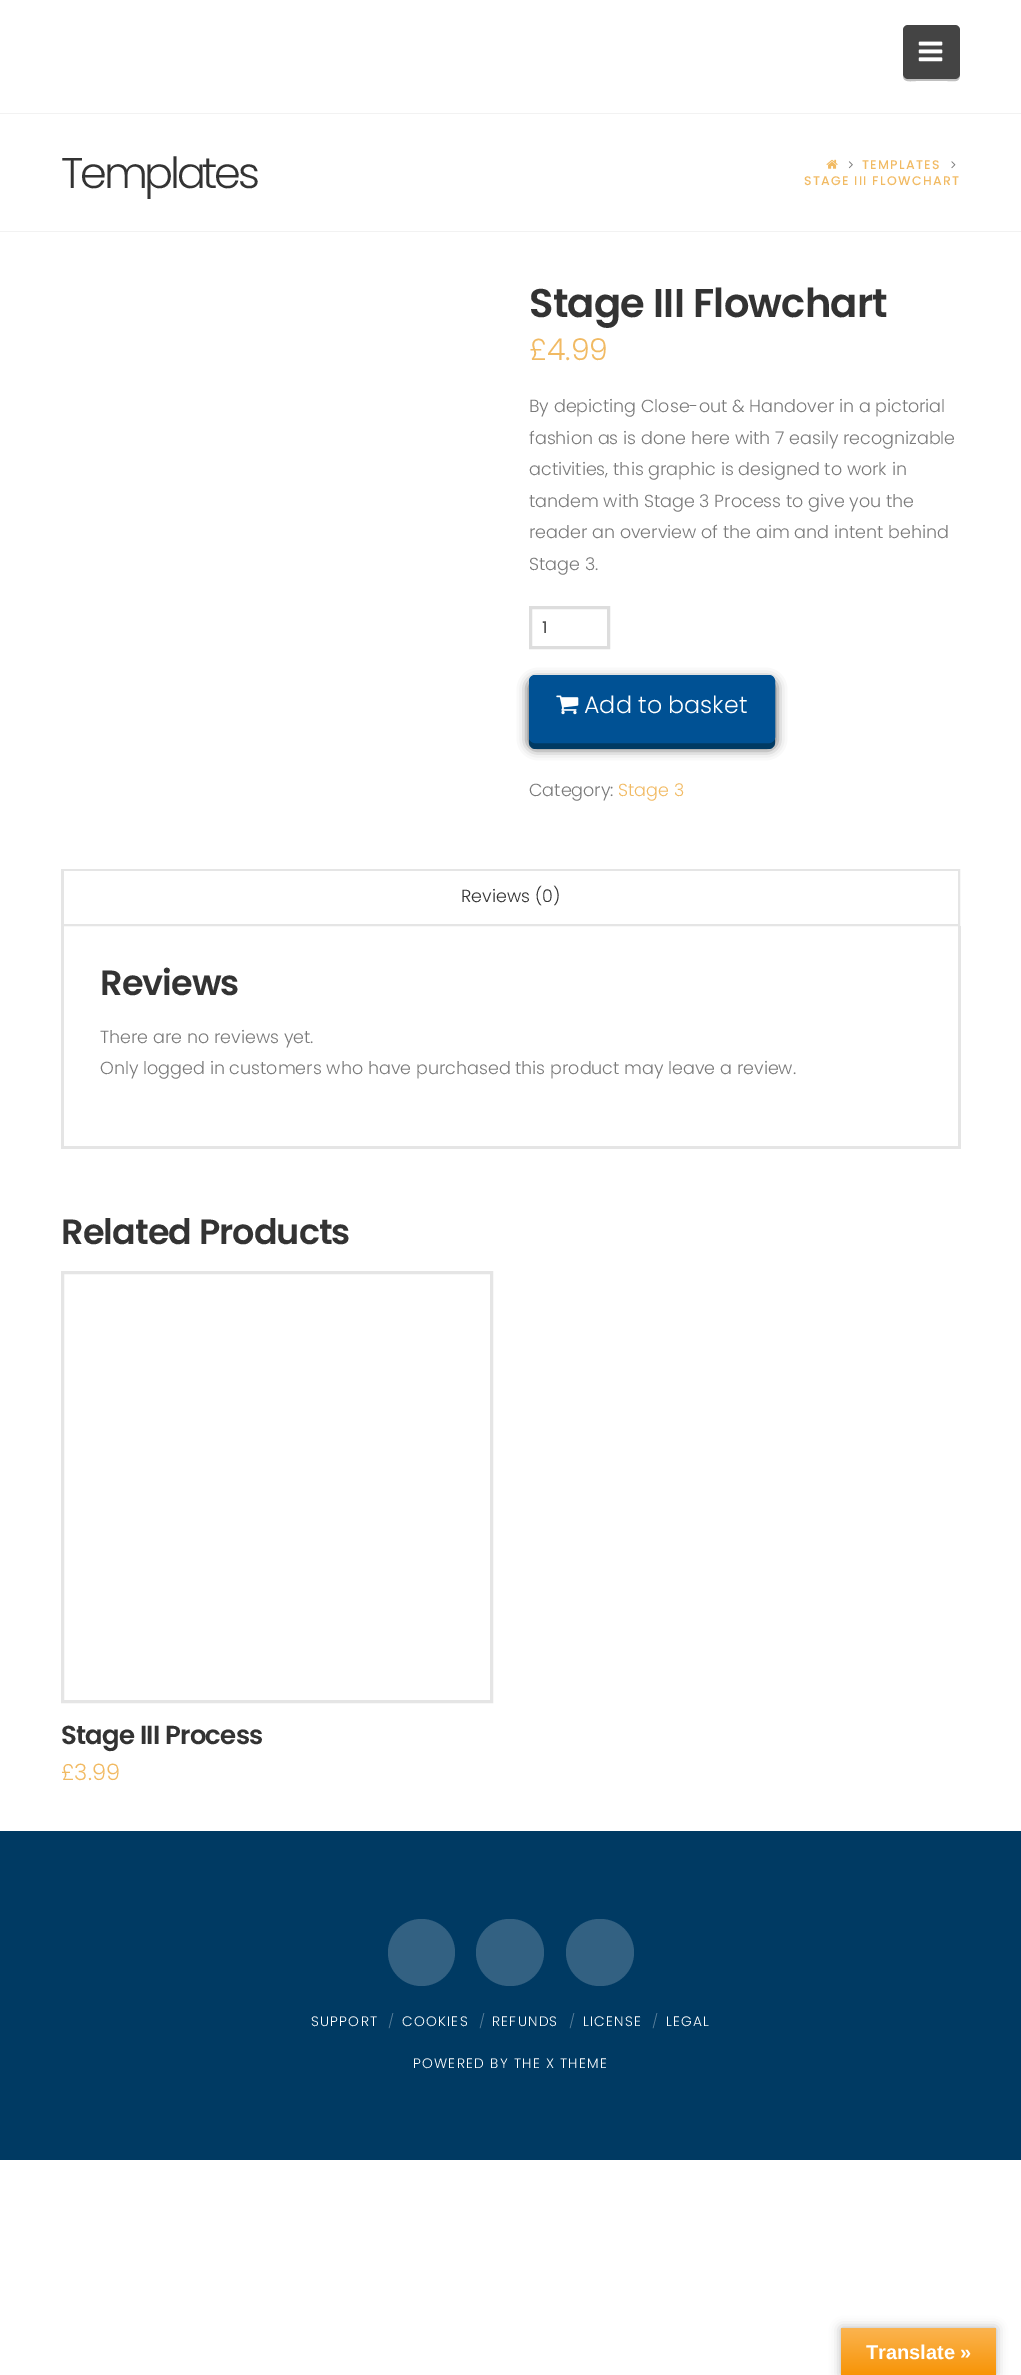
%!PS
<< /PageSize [1021 2375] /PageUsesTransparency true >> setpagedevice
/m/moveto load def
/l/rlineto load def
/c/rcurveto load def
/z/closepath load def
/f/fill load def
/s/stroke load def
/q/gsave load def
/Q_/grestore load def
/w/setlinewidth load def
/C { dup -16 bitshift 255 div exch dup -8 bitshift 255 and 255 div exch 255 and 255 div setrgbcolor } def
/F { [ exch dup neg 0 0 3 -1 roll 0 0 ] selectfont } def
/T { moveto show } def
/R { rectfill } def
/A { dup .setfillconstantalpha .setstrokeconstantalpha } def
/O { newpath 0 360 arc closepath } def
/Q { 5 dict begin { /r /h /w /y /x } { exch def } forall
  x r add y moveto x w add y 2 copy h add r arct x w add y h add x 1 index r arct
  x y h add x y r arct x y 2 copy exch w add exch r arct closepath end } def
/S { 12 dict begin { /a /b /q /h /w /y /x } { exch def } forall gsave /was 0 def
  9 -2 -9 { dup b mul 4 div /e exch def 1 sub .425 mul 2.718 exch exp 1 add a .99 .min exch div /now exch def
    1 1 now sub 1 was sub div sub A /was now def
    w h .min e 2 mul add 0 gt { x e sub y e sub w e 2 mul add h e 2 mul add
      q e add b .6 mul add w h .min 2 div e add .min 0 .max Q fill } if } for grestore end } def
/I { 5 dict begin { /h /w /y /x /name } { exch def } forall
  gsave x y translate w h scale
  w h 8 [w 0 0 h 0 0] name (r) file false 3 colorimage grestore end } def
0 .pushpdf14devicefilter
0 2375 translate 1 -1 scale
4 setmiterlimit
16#FFFFFF C
0 0 1021 2375 R
16#BFBFBF C
903 76 m 0 7 9 5 13 5 c 31 0 l 8 0 13 2 13 -7 c 0 3 -2 5 -5 5 c -47 0 l -2 0 -4 -1 -5 -3 c z f
16#444444 C
903 25 57 54 5 Q f
(1.rgb) 918 41 25 21 I
16#F2F2F2 C
0 113 1021 1 R
0 231 1021 1 R
/Poppins-Light 43 F
16#333333 C
61 188 m -3.25 0 (Templates) ashow
(2.rgb) 826 159 12 10 I
(3.rgb) 848 161 5 8 I
/Poppins-Medium 12.5 F
16#F1BA63 C
862 169 m 1.25 0 (TEMPLATES) ashow
(4.rgb) 951 161 5 8 I
804 185 m 1.25 0 (STAGE III FLOWCHART) ashow
/Poppins-SemiBold 40 F
16#333333 C
529 317 m -.75 0 (Stage III Flowchart) ashow
/Poppins-Light 30 F
16#F1BA63 C
(£4.99) 529 360 T
/Poppins-Light 17.5 F
16#7A7A7A C
(By depicting Close-out & Handover in a pictorial) 529 412 T
(fashion as is done here with 7 easily recognizable) 529 444 T
(activities, this graphic is designed to work in) 529 475 T
(tandem with Stage 3 Process to give you the) 529 507 T
(reader an overview of the aim and intent behind) 529 538 T
(Stage 3.) 529 570 T
16#DDDDDD C
3 w
530.5 607.5 78 40 rectstroke
/Poppins-Medium 16 F
16#555555 C
(1) 542 633 T
16#000000 C
529 680 246 68 6 5.5 .75 S
16#003A63 C
529 738 m 0 5 l 0 3 3 6 6 6 c 234 0 l 3 0 6 -3 6 -6 c 0 -6 l 0 3 -3 5 -6 5 c -234 0 l -3 0 -5 -1 -6 -4 c z f
16#005194 C
529.5 675.5 245 67 5.5 Q q f Q_
1 w
s
(5.rgb) 556 695 23 20 I
/Poppins-Light 23.75 F
16#FFFFFF C
(Add to basket) 584 713 T
/Poppins-Light 17.5 F
16#7A7A7A C
(Category:) 529 796 T
16#F1BA63 C
(Stage 3) 618 796 T
16#E5E5E5 C
3 w
62.5 870.5 896 54 rectstroke
16#FFFFFF C
64 871 894 53 R
16#333333 C
(Reviews \(0\)) 461 902 T
16#E5E5E5 C
958 926 3 223 R
61 1146 899 3 R
61 926 3 223 R
/Poppins-SemiBold 35 F
16#333333 C
100 995 m -.9 0 (Reviews) ashow
/Poppins-Light 17.5 F
16#7A7A7A C
(There are no reviews yet.) 100 1043 T
(Only logged in customers who have purchased this product may leave a review.) 100 1074 T
/Poppins-SemiBold 35 F
16#333333 C
61 1244 m -.9 0 (Related Products) ashow
16#E5E5E5 C
62.5 1272.5 429 429 rectstroke
/Poppins-SemiBold 26 F
16#333333 C
61 1744 m -.75 0 (Stage III Process) ashow
/Poppins-Light 22.5 F
16#F1BA63 C
(£3.99) 61 1780 T
16#003A63 C
0 1831 1021 329 R
16#336182 C
421.5 1952.5 33.5 O f
476 1919 68 67 33.5 Q f
566 1919 68 67 33.5 Q f
/Poppins-Light 13.75 F
16#FFFFFF C
311 2026 m 1.25 0 (SUPPORT) ashow
16#597F9A C
(/) 388 2026 T
16#FFFFFF C
402 2026 m 1.25 0 (COOKIES) ashow
16#597F9A C
(/) 479 2026 T
16#FFFFFF C
492 2026 m 1.25 0 (REFUNDS) ashow
16#597F9A C
(/) 569 2026 T
16#FFFFFF C
583 2026 m 1.25 0 (LICENSE) ashow
16#597F9A C
(/) 652 2026 T
16#FFFFFF C
666 2026 m 1.25 0 (LEGAL) ashow
413 2068 m 1.25 0 (POWERED BY THE X THEME) ashow
16#000000 C
841 2328 155 47 0 5.5 .3 S
q 841 2328 m 155 0 l 0 47 l -155 0 l z clip newpath
<< /ShadingType 2 /ColorSpace /DeviceRGB /Coords [919 2328 919 2375] /Extend [true true] /Function << /FunctionType 2 /Domain [0 1] /C0 [.984 .706 .314] /C1 [.973 .58 .024] /N 1 >> >> shfill Q_
/LiberationSans-Bold 20 F
16#FFFFFF C
(Translate ») 866 2359 T
.poppdf14devicefilter showpage
